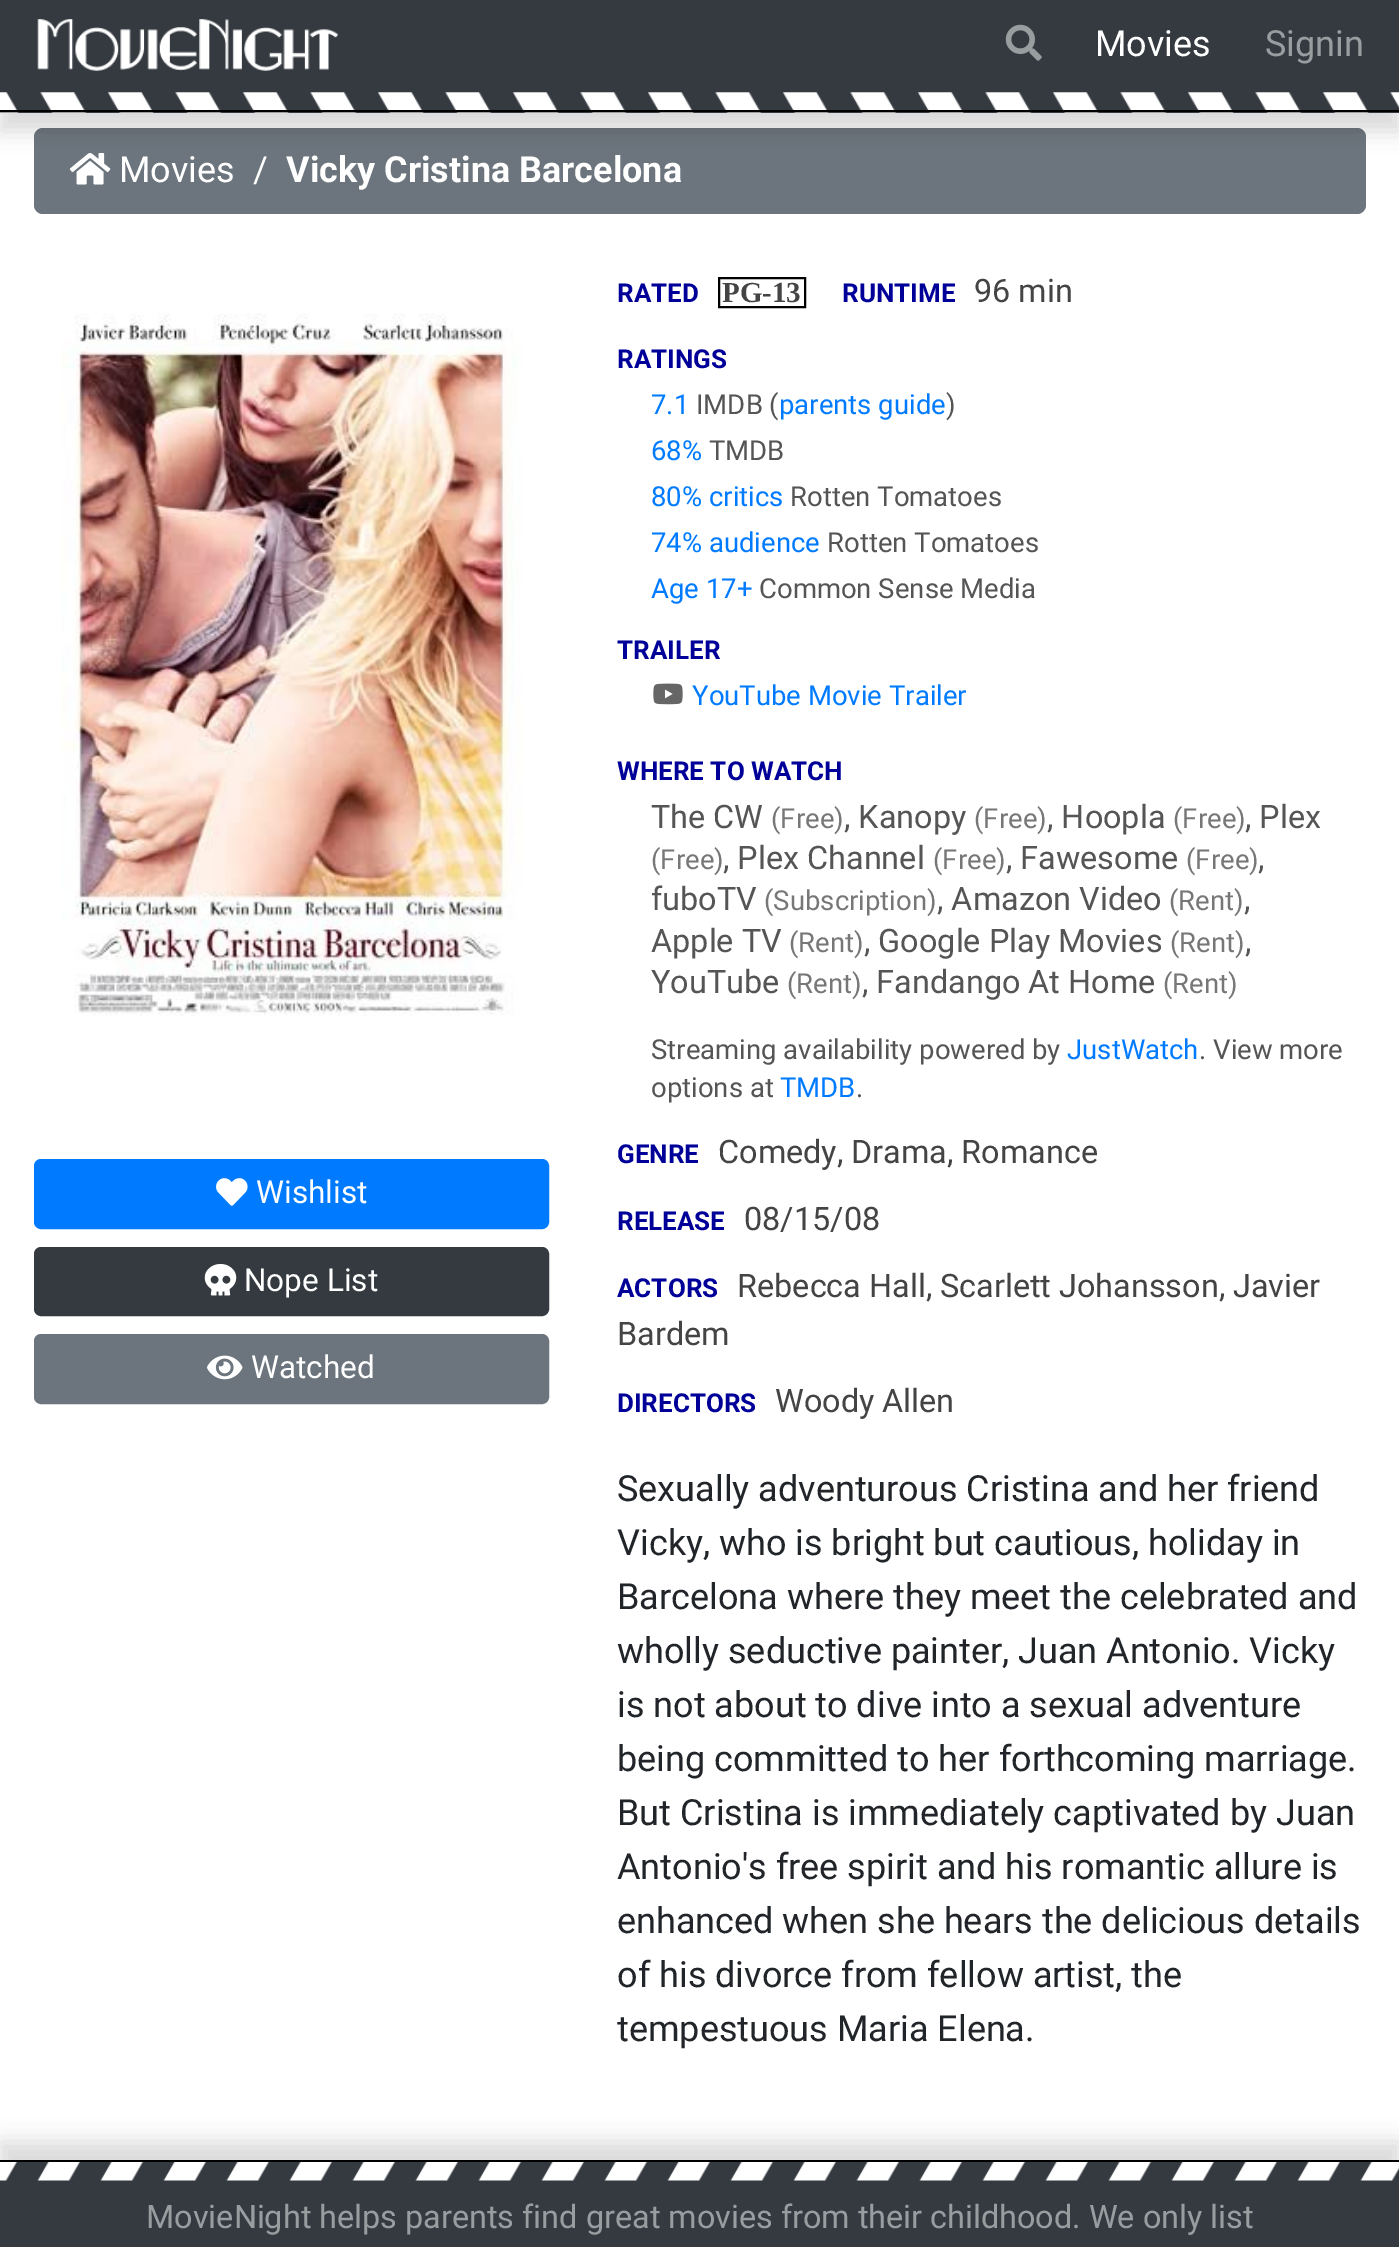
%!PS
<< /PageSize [1399 2247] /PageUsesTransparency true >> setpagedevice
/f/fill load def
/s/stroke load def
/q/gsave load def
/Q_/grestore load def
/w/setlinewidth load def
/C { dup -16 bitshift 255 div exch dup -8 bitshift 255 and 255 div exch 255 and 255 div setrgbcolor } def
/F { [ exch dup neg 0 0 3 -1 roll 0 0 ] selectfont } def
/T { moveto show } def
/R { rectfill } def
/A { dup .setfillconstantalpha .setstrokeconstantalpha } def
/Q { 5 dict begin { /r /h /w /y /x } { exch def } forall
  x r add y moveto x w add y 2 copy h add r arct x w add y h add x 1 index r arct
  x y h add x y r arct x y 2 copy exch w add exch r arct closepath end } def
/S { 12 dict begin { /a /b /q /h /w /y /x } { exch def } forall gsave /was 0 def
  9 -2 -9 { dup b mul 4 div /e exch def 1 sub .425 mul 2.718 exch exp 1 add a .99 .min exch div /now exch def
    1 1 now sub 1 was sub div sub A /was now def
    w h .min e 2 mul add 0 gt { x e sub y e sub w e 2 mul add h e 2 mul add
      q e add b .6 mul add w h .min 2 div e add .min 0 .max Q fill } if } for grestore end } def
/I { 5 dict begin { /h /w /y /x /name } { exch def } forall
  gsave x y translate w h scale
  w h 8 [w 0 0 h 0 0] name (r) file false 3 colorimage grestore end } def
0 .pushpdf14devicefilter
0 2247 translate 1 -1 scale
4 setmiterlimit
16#FFFFFF C
0 0 1399 2247 R
16#6C757D C
34 128 1332 86 9 Q f
(4.rgb) 69 153 42 32 I
16#000000 C
0 18 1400 113 0 11 .15 S
16#343A40 C
0 0 1399 113 R
(1.rgb) 0 92 1399 21 I
16#000000 C
0 110 1399 2 R
(2.rgb) 37 19 302 52 I
(3.rgb) 1005 24 37 37 I
/Roboto-Regular 36 F
16#FFFFFF C
(Movies) 1095 56 T
16#9A9DA0 C
(Signin) 1265 56 T
16#FFFFFF C
(Movies) 119 182 T
(/) 253 182 T
/Roboto-Bold 36 F
(Vicky Cristina Barcelona) 286 182 T
(5.rgb) 61 313 461 703 I
16#007BFF C
35 1160 513 68 6 Q q f Q_
2 w
s
(6.rgb) 216 1178 32 28 I
/Roboto-Regular 31.5 F
16#FFFFFF C
(Wishlist) 256 1203 T
16#343A40 C
35 1248 513 67 6 Q q f Q_
s
(7.rgb) 204 1263 33 33 I
16#FFFFFF C
(Nope List) 244 1291 T
16#6C757D C
35 1335 513 68 6 Q q f Q_
s
(8.rgb) 207 1355 36 25 I
16#FFFFFF C
(Watched) 251 1378 T
/Roboto-Bold 26 F
16#000099 C
(RATED) 617 302 T
16#000000 C
719 278 86 29 rectstroke
/LiberationSerif-Bold 29 F
16#444444 C
(PG-13) 722 302 T
/Roboto-Bold 26 F
16#000099 C
(RUNTIME) 842 302 T
/Roboto-Regular 32.4 F
16#444444 C
(96 min) 974 302 T
/Roboto-Bold 26 F
16#000099 C
(RATINGS) 617 368 T
/Roboto-Regular 27.5 F
16#007BFF C
(7.1) 651 414 T
16#555555 C
(IMDB \() 696 414 T
16#007BFF C
(parents guide) 779 414 T
16#555555 C
(\)) 946 414 T
16#007BFF C
(68%) 651 460 T
16#555555 C
(TMDB) 709 460 T
16#007BFF C
(80% critics) 651 506 T
16#555555 C
(Rotten Tomatoes) 790 506 T
16#007BFF C
(74% audience) 651 552 T
16#555555 C
(Rotten Tomatoes) 827 552 T
16#007BFF C
(Age 17+) 651 598 T
16#555555 C
(Common Sense Media) 759 598 T
/Roboto-Bold 26 F
16#000099 C
(TRAILER) 617 659 T
(9.rgb) 653 683 30 22 I
/Roboto-Regular 27.5 F
16#007BFF C
(YouTube Movie Trailer) 692 705 T
/Roboto-Bold 26 F
16#000099 C
(WHERE TO WATCH) 617 780 T
/Roboto-Regular 32.4 F
16#555555 C
(The CW) 651 828 T
/Roboto-Regular 27.5 F
16#777777 C
(\(Free\)) 771 828 T
/Roboto-Regular 32.4 F
16#555555 C
(, Kanopy) 844 828 T
/Roboto-Regular 27.5 F
16#777777 C
(\(Free\)) 974 828 T
/Roboto-Regular 32.4 F
16#555555 C
(, Hoopla) 1047 828 T
/Roboto-Regular 27.5 F
16#777777 C
(\(Free\)) 1173 828 T
/Roboto-Regular 32.4 F
16#555555 C
(, Plex) 1245 828 T
/Roboto-Regular 27.5 F
16#777777 C
(\(Free\)) 651 869 T
/Roboto-Regular 32.4 F
16#555555 C
(, Plex Channel) 723 869 T
/Roboto-Regular 27.5 F
16#777777 C
(\(Free\)) 933 869 T
/Roboto-Regular 32.4 F
16#555555 C
(, Fawesome) 1006 869 T
/Roboto-Regular 27.5 F
16#777777 C
(\(Free\)) 1186 869 T
/Roboto-Regular 32.4 F
16#555555 C
(,) 1258 869 T
(fuboTV) 651 910 T
/Roboto-Regular 27.5 F
16#777777 C
(\(Subscription\)) 764 910 T
/Roboto-Regular 32.4 F
16#555555 C
(, Amazon Video) 937 910 T
/Roboto-Regular 27.5 F
16#777777 C
(\(Rent\)) 1169 910 T
/Roboto-Regular 32.4 F
16#555555 C
(,) 1244 910 T
(Apple TV) 651 952 T
/Roboto-Regular 27.5 F
16#777777 C
(\(Rent\)) 789 952 T
/Roboto-Regular 32.4 F
16#555555 C
(, Google Play Movies) 864 952 T
/Roboto-Regular 27.5 F
16#777777 C
(\(Rent\)) 1170 952 T
/Roboto-Regular 32.4 F
16#555555 C
(,) 1245 952 T
(YouTube) 651 993 T
/Roboto-Regular 27.5 F
16#777777 C
(\(Rent\)) 787 993 T
/Roboto-Regular 32.4 F
16#555555 C
(, Fandango At Home) 862 993 T
/Roboto-Regular 27.5 F
16#777777 C
(\(Rent\)) 1163 993 T
16#555555 C
(Streaming availability powered by) 651 1059 T
16#007BFF C
(JustWatch) 1067 1059 T
16#555555 C
(. View more) 1199 1059 T
(options at) 651 1097 T
16#007BFF C
(TMDB) 780 1097 T
16#555555 C
(.) 856 1097 T
/Roboto-Bold 26 F
16#000099 C
(GENRE) 617 1163 T
/Roboto-Regular 32.4 F
16#444444 C
(Comedy, Drama, Romance) 718 1163 T
/Roboto-Bold 26 F
16#000099 C
(RELEASE) 617 1230 T
/Roboto-Regular 32.4 F
16#444444 C
(08/15/08) 744 1230 T
/Roboto-Bold 26 F
16#000099 C
(ACTORS) 617 1297 T
/Roboto-Regular 32.4 F
16#444444 C
(Rebecca Hall, Scarlett Johansson, Javier) 737 1297 T
(Bardem) 617 1345 T
/Roboto-Bold 26 F
16#000099 C
(DIRECTORS) 617 1412 T
/Roboto-Regular 32.4 F
16#444444 C
(Woody Allen) 775 1412 T
/Roboto-Regular 36 F
16#212529 C
(Sexually adventurous Cristina and her friend) 617 1501 T
(Vicky, who is bright but cautious, holiday in) 617 1555 T
(Barcelona where they meet the celebrated and) 617 1609 T
(wholly seductive painter, Juan Antonio. Vicky) 617 1663 T
(is not about to dive into a sexual adventure) 617 1717 T
(being committed to her forthcoming marriage.) 617 1771 T
(But Cristina is immediately captivated by Juan) 617 1825 T
(Antonio's free spirit and his romantic allure is) 617 1879 T
(enhanced when she hears the delicious details) 617 1933 T
(of his divorce from fellow artist, the) 617 1987 T
(tempestuous Maria Elena.) 617 2041 T
16#000000 C
0 2142 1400 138 0 11 .15 S
16#343A40 C
0 2162 1399 85 R
(10.rgb) 0 2162 1399 19 I
16#000000 C
0 2160 1399 2 R
/Roboto-Regular 32.4 F
16#9A9DA0 C
(MovieNight helps parents find great movies from their childhood. We only list) 146 2228 T
.poppdf14devicefilter showpage
